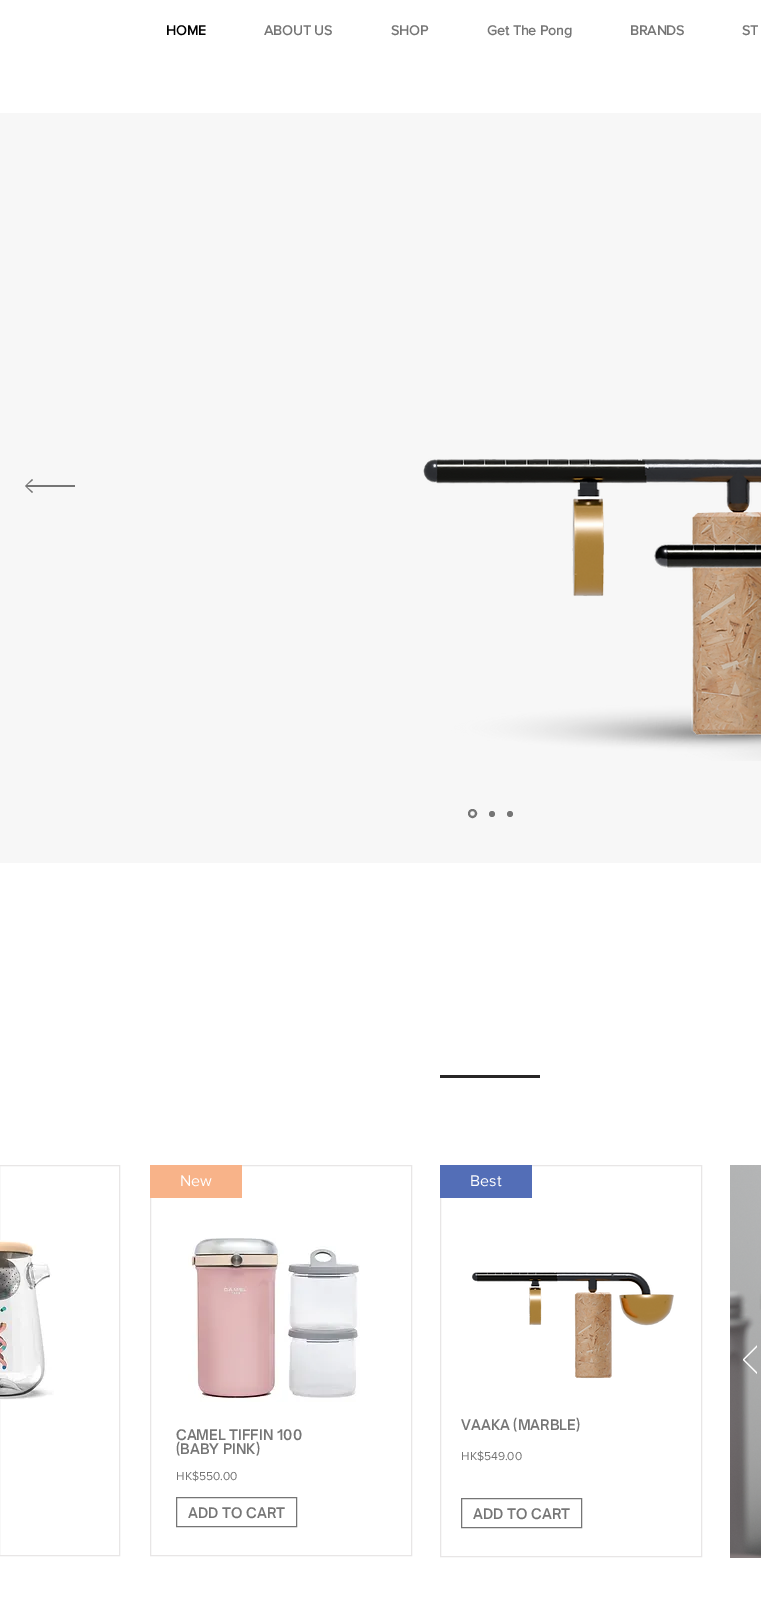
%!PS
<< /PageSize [761 1599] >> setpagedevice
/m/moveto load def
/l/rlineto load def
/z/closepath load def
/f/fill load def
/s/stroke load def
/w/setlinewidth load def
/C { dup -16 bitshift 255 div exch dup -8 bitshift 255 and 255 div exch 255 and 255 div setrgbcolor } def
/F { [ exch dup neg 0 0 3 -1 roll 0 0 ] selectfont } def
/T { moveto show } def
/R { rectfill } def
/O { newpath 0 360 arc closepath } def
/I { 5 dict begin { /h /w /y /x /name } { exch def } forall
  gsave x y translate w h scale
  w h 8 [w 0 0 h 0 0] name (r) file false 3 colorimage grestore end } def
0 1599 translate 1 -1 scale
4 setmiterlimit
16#FFFFFF C
0 0 761 1599 R
/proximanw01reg-Bold 14 F
16#000000 C
(HOME) 166 35 T
16#757575 C
(ABOUT US) 264 35 T
(SHOP) 391 35 T
(Get The Pong) 487 35 T
(BRANDS) 630 35 T
(ST) 742 35 T
16#F7F7F7 C
0 113 761 750 R
(1.rgb) 423 458 338 303 I
16#757575 C
32 479 m 1 1 l -6 5 l 48 0 l 0 2 l -48 0 l 6 5 l -1 1 l -7 -7 l z f
2 w
472.5 813.5 3.5 O s
492 814 3 O f
510 814 3 O f
16#282626 C
440 1075 100 3 R
16#E8E6E6 C
1 w
-.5 1165.5 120 390 rectstroke
(2.rgb) 0 1240 54 160 I
150.5 1165.5 261 390 rectstroke
16#F8B389 C
150 1165 92 33 R
/proximanw01reg-Regular 16 F
16#FFFFFF C
(New) 180 1186 T
(3.rgb) 188 1238 172 164 I
/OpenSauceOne-SemiBold 14 F
16#757575 C
(CAMEL TIFFIN 100) 176 1440 T
(\(BABY PINK\)) 176 1454 T
/proximanw01reg-Regular 12 F
(HK$550.00) 176 1480 T
176.5 1497.5 120 29 rectstroke
/OpenSauceOne-SemiBold 14 F
(ADD TO CART) 188 1518 T
16#E8E6E6 C
440.5 1165.5 261 391 rectstroke
16#536EB7 C
440 1165 92 33 R
/proximanw01reg-Regular 16 F
16#FFFFFF C
(Best) 470 1186 T
(4.rgb) 472 1272 202 107 I
/OpenSauceOne-SemiBold 14 F
16#757575 C
(VAAKA \(MARBLE\)) 461 1430 T
/proximanw01reg-Regular 12 F
(HK$549.00) 461 1460 T
461.5 1498.5 120 29 rectstroke
/OpenSauceOne-SemiBold 14 F
(ADD TO CART) 473 1519 T
(5.rgb) 730 1165 31 393 I
(6.rgb) 743 1345 14 29 I
showpage
